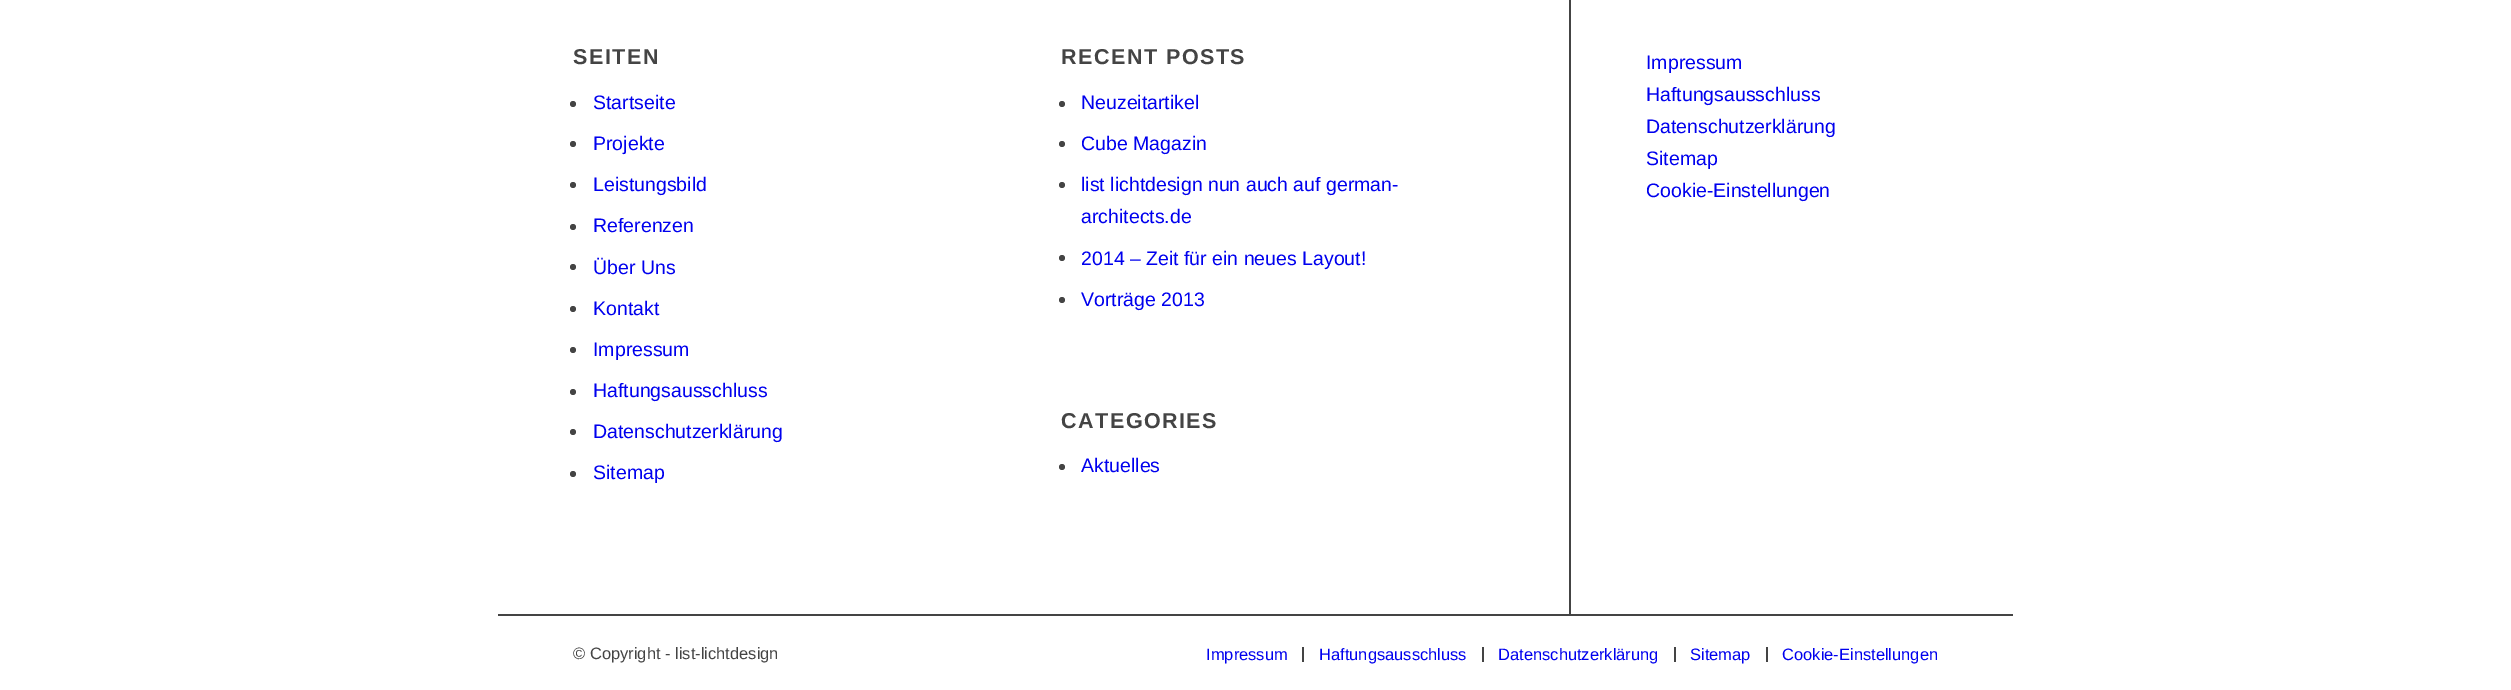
%!PS
<< /PageSize [2511 690] >> setpagedevice
/m/moveto load def
/f/fill load def
/C { dup -16 bitshift 255 div exch dup -8 bitshift 255 and 255 div exch 255 and 255 div setrgbcolor } def
/F { [ exch dup neg 0 0 3 -1 roll 0 0 ] selectfont } def
/T { moveto show } def
/R { rectfill } def
/O { newpath 0 360 arc closepath } def
0 690 translate 1 -1 scale
4 setmiterlimit
16#FFFFFF C
0 0 2511 690 R
16#444444 C
1569 0 2 614 R
/LiberationSans-Bold 21.5 F
573 64 m 1.5 0 (SEITEN) ashow
573 104 3 O f
/LiberationSans-Regular 19.5 F
16#0000EE C
(Startseite) 593 109 T
16#444444 C
573 144 3 O f
16#0000EE C
(Projekte) 593 150 T
16#444444 C
573 185 3 O f
16#0000EE C
(Leistungsbild) 593 191 T
16#444444 C
573 227 3 O f
16#0000EE C
(Referenzen) 593 232 T
16#444444 C
573 267 3 O f
16#0000EE C
(Über Uns) 593 274 T
16#444444 C
573 309 3 O f
16#0000EE C
(Kontakt) 593 315 T
16#444444 C
573 350 3 O f
16#0000EE C
(Impressum) 593 356 T
16#444444 C
573 392 3 O f
16#0000EE C
(Haftungsausschluss) 593 397 T
16#444444 C
573 432 3 O f
16#0000EE C
(Datenschutzerklärung) 593 438 T
16#444444 C
573 474 3 O f
16#0000EE C
(Sitemap) 593 479 T
/LiberationSans-Bold 21.5 F
16#444444 C
1061 64 m 1.5 0 (RECENT POSTS) ashow
1062 104 3 O f
/LiberationSans-Regular 19.5 F
16#0000EE C
(Neuzeitartikel) 1081 109 T
16#444444 C
1062 144 3 O f
16#0000EE C
(Cube Magazin) 1081 150 T
16#444444 C
1062 185 3 O f
16#0000EE C
(list lichtdesign nun auch auf german-) 1081 191 T
(architects.de) 1081 223 T
16#444444 C
1062 258 3 O f
16#0000EE C
(2014 – Zeit für ein neues Layout!) 1081 265 T
16#444444 C
1062 300 3 O f
16#0000EE C
(Vorträge 2013) 1081 306 T
/LiberationSans-Bold 21.5 F
16#444444 C
1061 428 m 1.5 0 (CATEGORIES) ashow
1062 467 3 O f
/LiberationSans-Regular 19.5 F
16#0000EE C
(Aktuelles) 1081 472 T
(Impressum) 1646 69 T
(Haftungsausschluss) 1646 101 T
(Datenschutzerklärung) 1646 133 T
(Sitemap) 1646 165 T
(Cookie-Einstellungen) 1646 197 T
16#444444 C
498 614 1515 2 R
/LiberationSans-Regular 16.5 F
(© Copyright - list-lichtdesign) 573 659 T
16#0000EE C
(Impressum) 1206 660 T
16#444444 C
1302 647 2 15 R
16#0000EE C
(Haftungsausschluss) 1319 660 T
16#444444 C
1482 647 2 15 R
16#0000EE C
(Datenschutzerklärung) 1498 660 T
16#444444 C
1674 647 2 15 R
16#0000EE C
(Sitemap) 1690 660 T
16#444444 C
1766 647 2 15 R
16#0000EE C
(Cookie-Einstellungen) 1782 660 T
showpage
